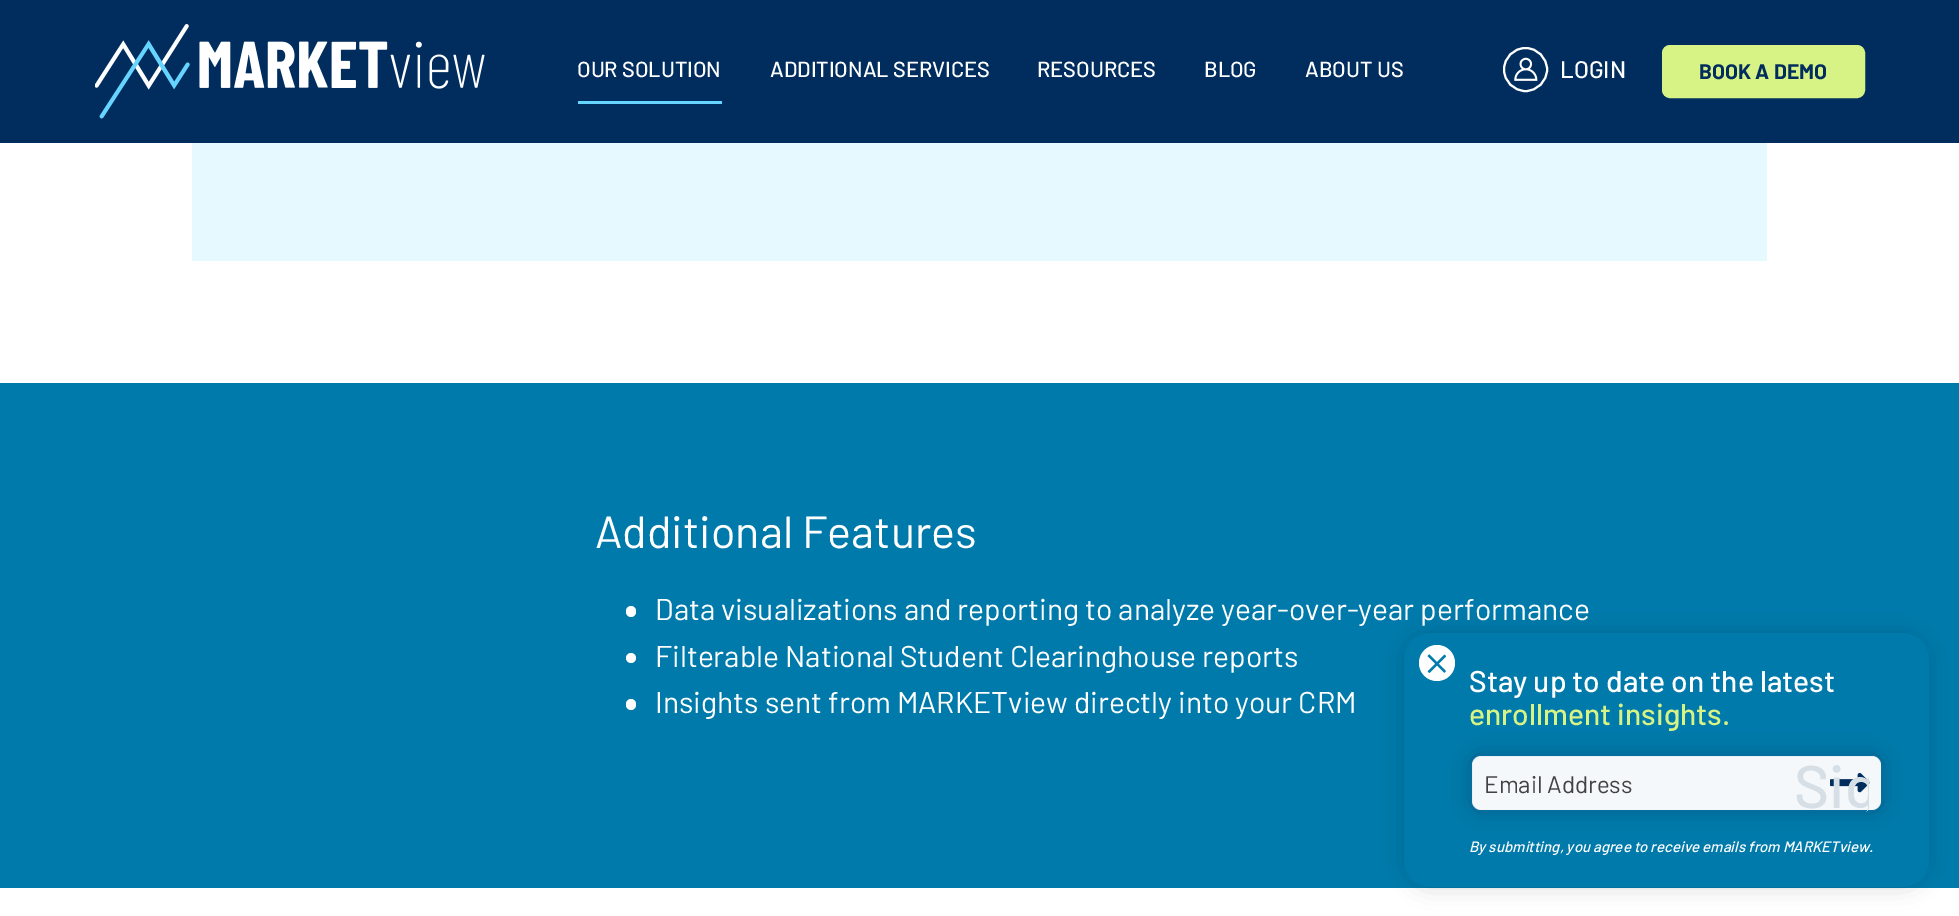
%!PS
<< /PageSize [1959 916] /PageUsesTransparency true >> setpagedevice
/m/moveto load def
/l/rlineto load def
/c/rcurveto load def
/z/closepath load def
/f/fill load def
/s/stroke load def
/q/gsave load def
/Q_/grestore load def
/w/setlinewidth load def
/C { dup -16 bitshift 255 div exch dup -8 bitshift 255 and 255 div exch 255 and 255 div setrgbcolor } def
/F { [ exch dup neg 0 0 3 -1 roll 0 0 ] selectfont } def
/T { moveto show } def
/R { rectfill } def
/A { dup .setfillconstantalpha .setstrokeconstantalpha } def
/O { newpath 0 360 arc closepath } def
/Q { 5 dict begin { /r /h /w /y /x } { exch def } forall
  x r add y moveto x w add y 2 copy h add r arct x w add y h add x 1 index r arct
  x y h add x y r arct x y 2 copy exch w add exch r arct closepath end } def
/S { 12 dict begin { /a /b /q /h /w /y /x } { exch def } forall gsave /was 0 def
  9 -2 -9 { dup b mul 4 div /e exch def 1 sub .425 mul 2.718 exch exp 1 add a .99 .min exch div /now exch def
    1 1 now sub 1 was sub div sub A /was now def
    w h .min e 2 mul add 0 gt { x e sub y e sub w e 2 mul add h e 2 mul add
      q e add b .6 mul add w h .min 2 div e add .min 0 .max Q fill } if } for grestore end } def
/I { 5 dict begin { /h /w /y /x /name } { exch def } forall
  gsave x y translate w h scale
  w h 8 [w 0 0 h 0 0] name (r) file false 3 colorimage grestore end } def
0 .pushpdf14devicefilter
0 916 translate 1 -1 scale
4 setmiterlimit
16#FFFFFF C
0 0 1959 916 R
16#002D5D C
0 0 1959 143 R
(1.rgb) 95 24 390 95 I
16#66D4FF C
578 101 144 3 R
/Barlow-Medium 21.75 F
16#FFFFFF C
(OUR SOLUTION) 577 77 T
(ADDITIONAL SERVICES) 770 77 T
(RESOURCES) 1037 77 T
(BLOG) 1204 77 T
(ABOUT US) 1305 77 T
2 w
1525.5 69.5 21.5 O s
(2.rgb) 1514 57 24 24 I
/Barlow-Medium 24 F
(LOGIN) 1560 78 T
16#D7F285 C
1663 46 201 51 7 Q q f Q_
s
/Barlow-Bold 21 F
16#002D5D C
(BOOK A DEMO) 1699 79 T
16#E6F9FF C
192 143 1575 118 R
16#007AAB C
0 383 1959 505 R
/Barlow-Regular 45 F
16#FFFFFF C
(Additional Features) 595 548 T
626 606 10 11 5 Q f
/Barlow-Regular 30 F
(Data visualizations and reporting to analyze year-over-year performance) 655 620 T
631 658 5 O f
(Filterable National Student Clearinghouse reports) 655 667 T
626 699 10 11 5 Q f
(Insights sent from MARKETview directly into your CRM) 655 713 T
q
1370 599 m 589 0 l 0 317 l -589 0 l z 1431 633 m 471 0 l 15 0 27 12 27 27 c 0 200 l 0 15 -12 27 -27 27 c -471 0 l -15 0 -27 -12 -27 -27 c 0 -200 l 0 -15 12 -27 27 -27 c z eoclip newpath
16#000000 C
1404 633 525 254 27 11 .15 S
Q_
0.95 A
16#007AAB C
1404 633 525 254 27 Q f
1 A
16#FFFFFF C
1437 663 18 O f
/Barlow-Light 57 F
16#007AAB C
(×) 1425 682 T
/Barlow-Medium 30 F
16#FFFFFF C
(Stay up to date on the latest) 1469 692 T
16#D7F285 C
(enrollment insights.) 1469 725 T
q
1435 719 m 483 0 l 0 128 l -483 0 l z 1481 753 m 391 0 l 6.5 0 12 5.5 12 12 c 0 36 l 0 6.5 -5.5 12 -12 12 c -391 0 l -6.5 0 -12 -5.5 -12 -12 c 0 -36 l 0 -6.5 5.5 -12 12 -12 c z eoclip newpath
16#000000 C
1469 753 415 60 12 11 .15 S
Q_
16#F5F8FA C
1472 756 409 54 9 Q f
0.2 A
16#163E6B C
3 w
1470.5 754.5 412 57 10.5 Q s
/Barlow-Regular 24 F
1 A
16#424242 C
(Email Address) 1484 793 T
(3.rgb) 1830 772 40 21 I
q
1794 753 75 60 8 Q clip newpath
/Barlow-Medium 60 F
16#D6DEE6 C
(Sig) 1794 808 T
Q_
/Barlow-MediumItalic 15 F
16#FFFFFF C
(By submitting, you agree to receive emails from MARKETview.) 1469 852 T
.poppdf14devicefilter showpage
